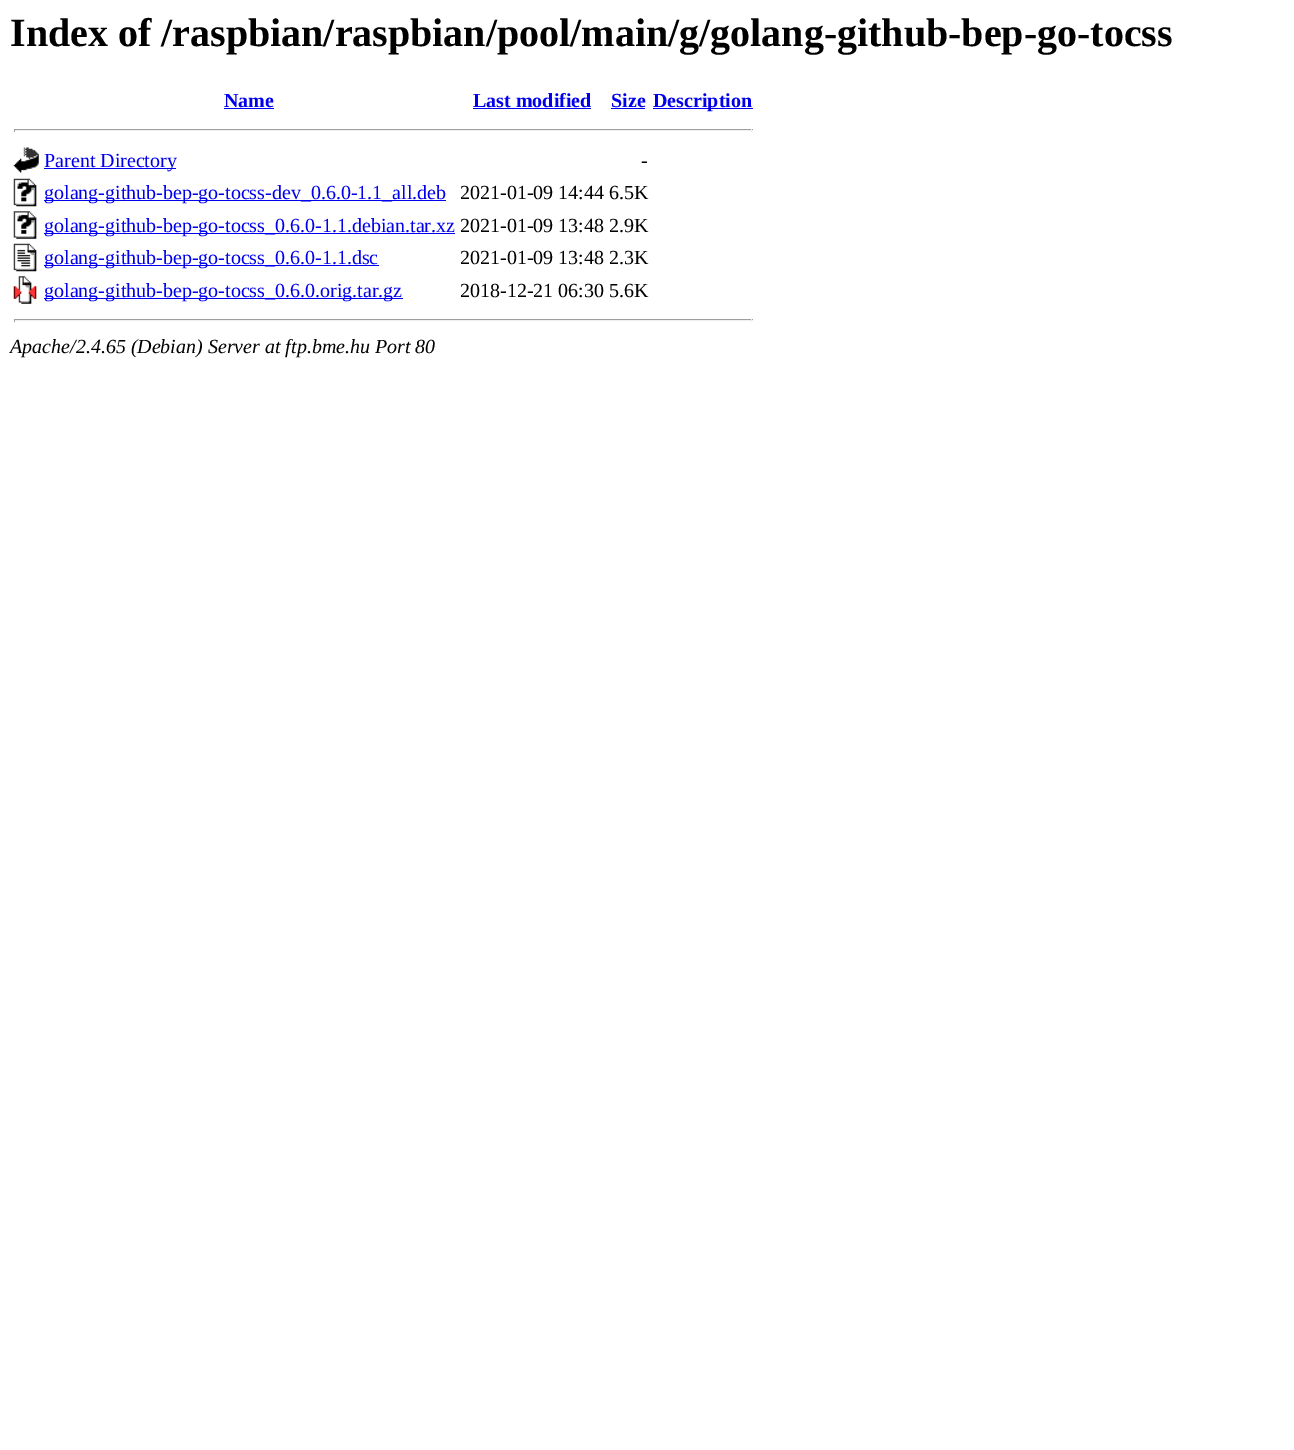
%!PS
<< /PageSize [1294 1450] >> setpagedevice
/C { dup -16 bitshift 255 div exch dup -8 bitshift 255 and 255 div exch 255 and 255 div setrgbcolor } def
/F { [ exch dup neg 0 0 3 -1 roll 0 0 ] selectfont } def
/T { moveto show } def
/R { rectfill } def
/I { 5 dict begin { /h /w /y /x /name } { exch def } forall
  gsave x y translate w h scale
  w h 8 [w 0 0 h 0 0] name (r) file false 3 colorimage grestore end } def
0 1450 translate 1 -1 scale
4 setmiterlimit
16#FFFFFF C
0 0 1294 1450 R
/LiberationSerif-Bold 40 F
16#000000 C
(Index of /raspbian/raspbian/pool/main/g/golang-github-bep-go-tocss) 10 46 T
/LiberationSerif-Bold 20 F
16#0000EE C
(Name) 224 107 T
224 108 50 1 R
(Last modified) 473 107 T
473 108 118 1 R
(Size) 611 107 T
611 108 34 1 R
653 108 100 1 R
(Description) 653 107 T
16#9F9F9F C
14 129 739 1 R
16#EEEEEE C
751 129 1 3 R
14 130 739 1 R
16#9F9F9F C
14 129 1 3 R
(1.rgb) 13 147 26 26 I
16#0000EE C
44 168 132 1 R
/LiberationSerif-Regular 20 F
(Parent Directory) 44 167 T
16#000000 C
(-) 641 167 T
(2.rgb) 13 178 24 29 I
16#0000EE C
44 200 402 1 R
(golang-github-bep-go-tocss-dev_0.6.0-1.1_all.deb) 44 199 T
16#000000 C
(2021-01-09 14:44 6.5K) 460 199 T
(3.rgb) 13 211 24 28 I
16#0000EE C
44 233 411 1 R
(golang-github-bep-go-tocss_0.6.0-1.1.debian.tar.xz) 44 232 T
16#000000 C
(2021-01-09 13:48 2.9K) 460 232 T
(4.rgb) 13 243 24 29 I
16#0000EE C
44 265 335 1 R
(golang-github-bep-go-tocss_0.6.0-1.1.dsc) 44 264 T
16#000000 C
(2021-01-09 13:48 2.3K) 460 264 T
(5.rgb) 13 276 24 28 I
16#0000EE C
44 298 359 1 R
(golang-github-bep-go-tocss_0.6.0.orig.tar.gz) 44 297 T
16#000000 C
(2018-12-21 06:30 5.6K) 460 297 T
16#9F9F9F C
14 319 739 1 R
16#EEEEEE C
751 319 1 3 R
14 320 739 1 R
16#9F9F9F C
14 319 1 3 R
/LiberationSerif-Italic 20 F
16#000000 C
(Apache/2.4.65 \(Debian\) Server at ftp.bme.hu Port 80) 10 353 T
showpage
